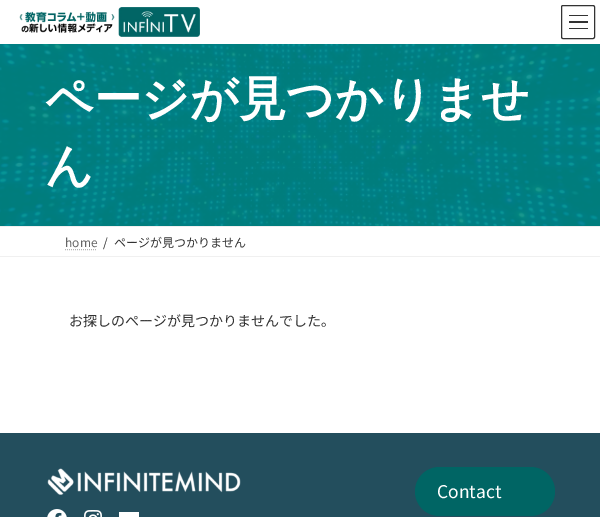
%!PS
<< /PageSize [600 517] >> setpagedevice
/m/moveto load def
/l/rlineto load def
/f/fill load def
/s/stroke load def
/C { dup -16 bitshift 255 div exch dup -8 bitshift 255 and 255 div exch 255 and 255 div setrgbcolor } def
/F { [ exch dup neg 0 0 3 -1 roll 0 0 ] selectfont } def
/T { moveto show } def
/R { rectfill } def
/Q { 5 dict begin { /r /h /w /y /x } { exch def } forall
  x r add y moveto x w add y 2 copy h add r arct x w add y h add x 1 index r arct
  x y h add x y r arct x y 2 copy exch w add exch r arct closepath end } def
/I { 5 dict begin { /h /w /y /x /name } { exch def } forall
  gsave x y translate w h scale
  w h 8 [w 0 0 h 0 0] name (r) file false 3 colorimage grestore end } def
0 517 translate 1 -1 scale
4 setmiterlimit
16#FFFFFF C
0 0 600 517 R
(1.rgb) 19 7 181 30 I
16#333333 C
569 15 19 1 R
569 21 19 2 R
569 28 19 1 R
561.5 5.5 33 33 1.5 Q s
(2.rgb) 0 44 600 182 I
/WenQuanYiZenHei-Bold 47.6 F
16#FFFFFF C
(ページが見つかりませ) 45 115 T
(ん) 45 182 T
16#F0F0F0 C
0 226 600 1 R
0 256 600 1 R
/NotoSansJP-Regular 12 F
16#666666 C
(home) 65 247 T
16#B3B3B3 C
[1 1] 0 setdash
65 249.5 m 32 0 l s
16#333333 C
(/) 103 247 T
(ページが見つかりません) 114 247 T
/NotoSansJP-Regular 14 F
(お探しのページが見つかりませんでした。) 69 326 T
16#234E5D C
0 433 600 84 R
(3.rgb) 47 468 194 27 I
(4.rgb) 47 509 20 8 I
(5.rgb) 84 510 18 7 I
16#FFFFFF C
119 512 20 5 R
16#006564 C
415 467 140 49 24.5 Q f
/NotoSansJP-Regular 17.5 F
16#FFFFFF C
(Contact) 437 498 T
showpage
